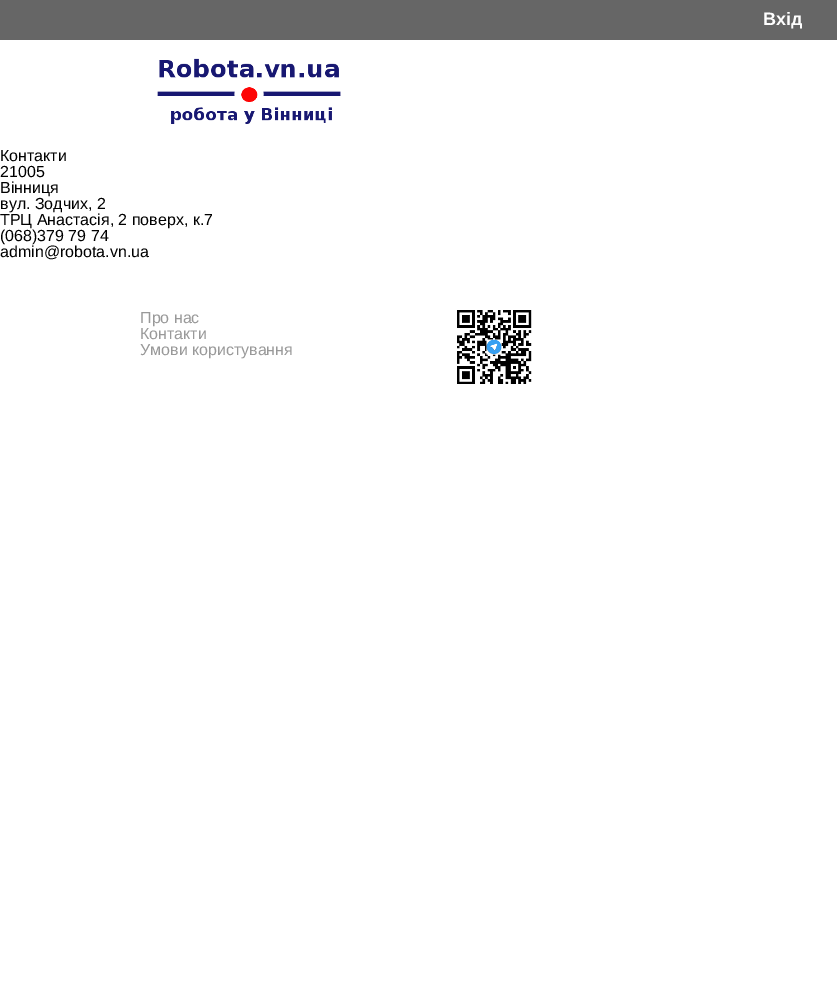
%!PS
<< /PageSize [837 985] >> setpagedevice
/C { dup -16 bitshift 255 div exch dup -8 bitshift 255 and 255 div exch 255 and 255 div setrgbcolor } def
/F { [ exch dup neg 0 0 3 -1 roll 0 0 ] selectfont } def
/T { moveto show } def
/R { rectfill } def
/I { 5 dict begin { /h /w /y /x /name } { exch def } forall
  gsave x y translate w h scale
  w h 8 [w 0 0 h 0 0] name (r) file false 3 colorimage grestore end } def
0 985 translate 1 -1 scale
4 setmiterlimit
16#FFFFFF C
0 0 837 985 R
16#666666 C
0 0 837 40 R
/LiberationSans-Bold 18 F
16#FFFFFF C
(Вхід) 763 25 T
(1.rgb) 157 58 184 66 I
/LiberationSans-Regular 16 F
16#000000 C
(Контакти) 0 161 T
(21005) 0 177 T
(Вінниця) 0 193 T
(вул. Зодчих, 2) 0 209 T
(ТРЦ Анастасія, 2 поверх, к.7) 0 225 T
(\(068\)379 79 74) 0 241 T
(admin@robota.vn.ua) 0 257 T
16#999999 C
(Про нас) 140 323 T
(Контакти) 140 339 T
(Умови користування) 140 355 T
(2.rgb) 457 310 75 74 I
showpage
